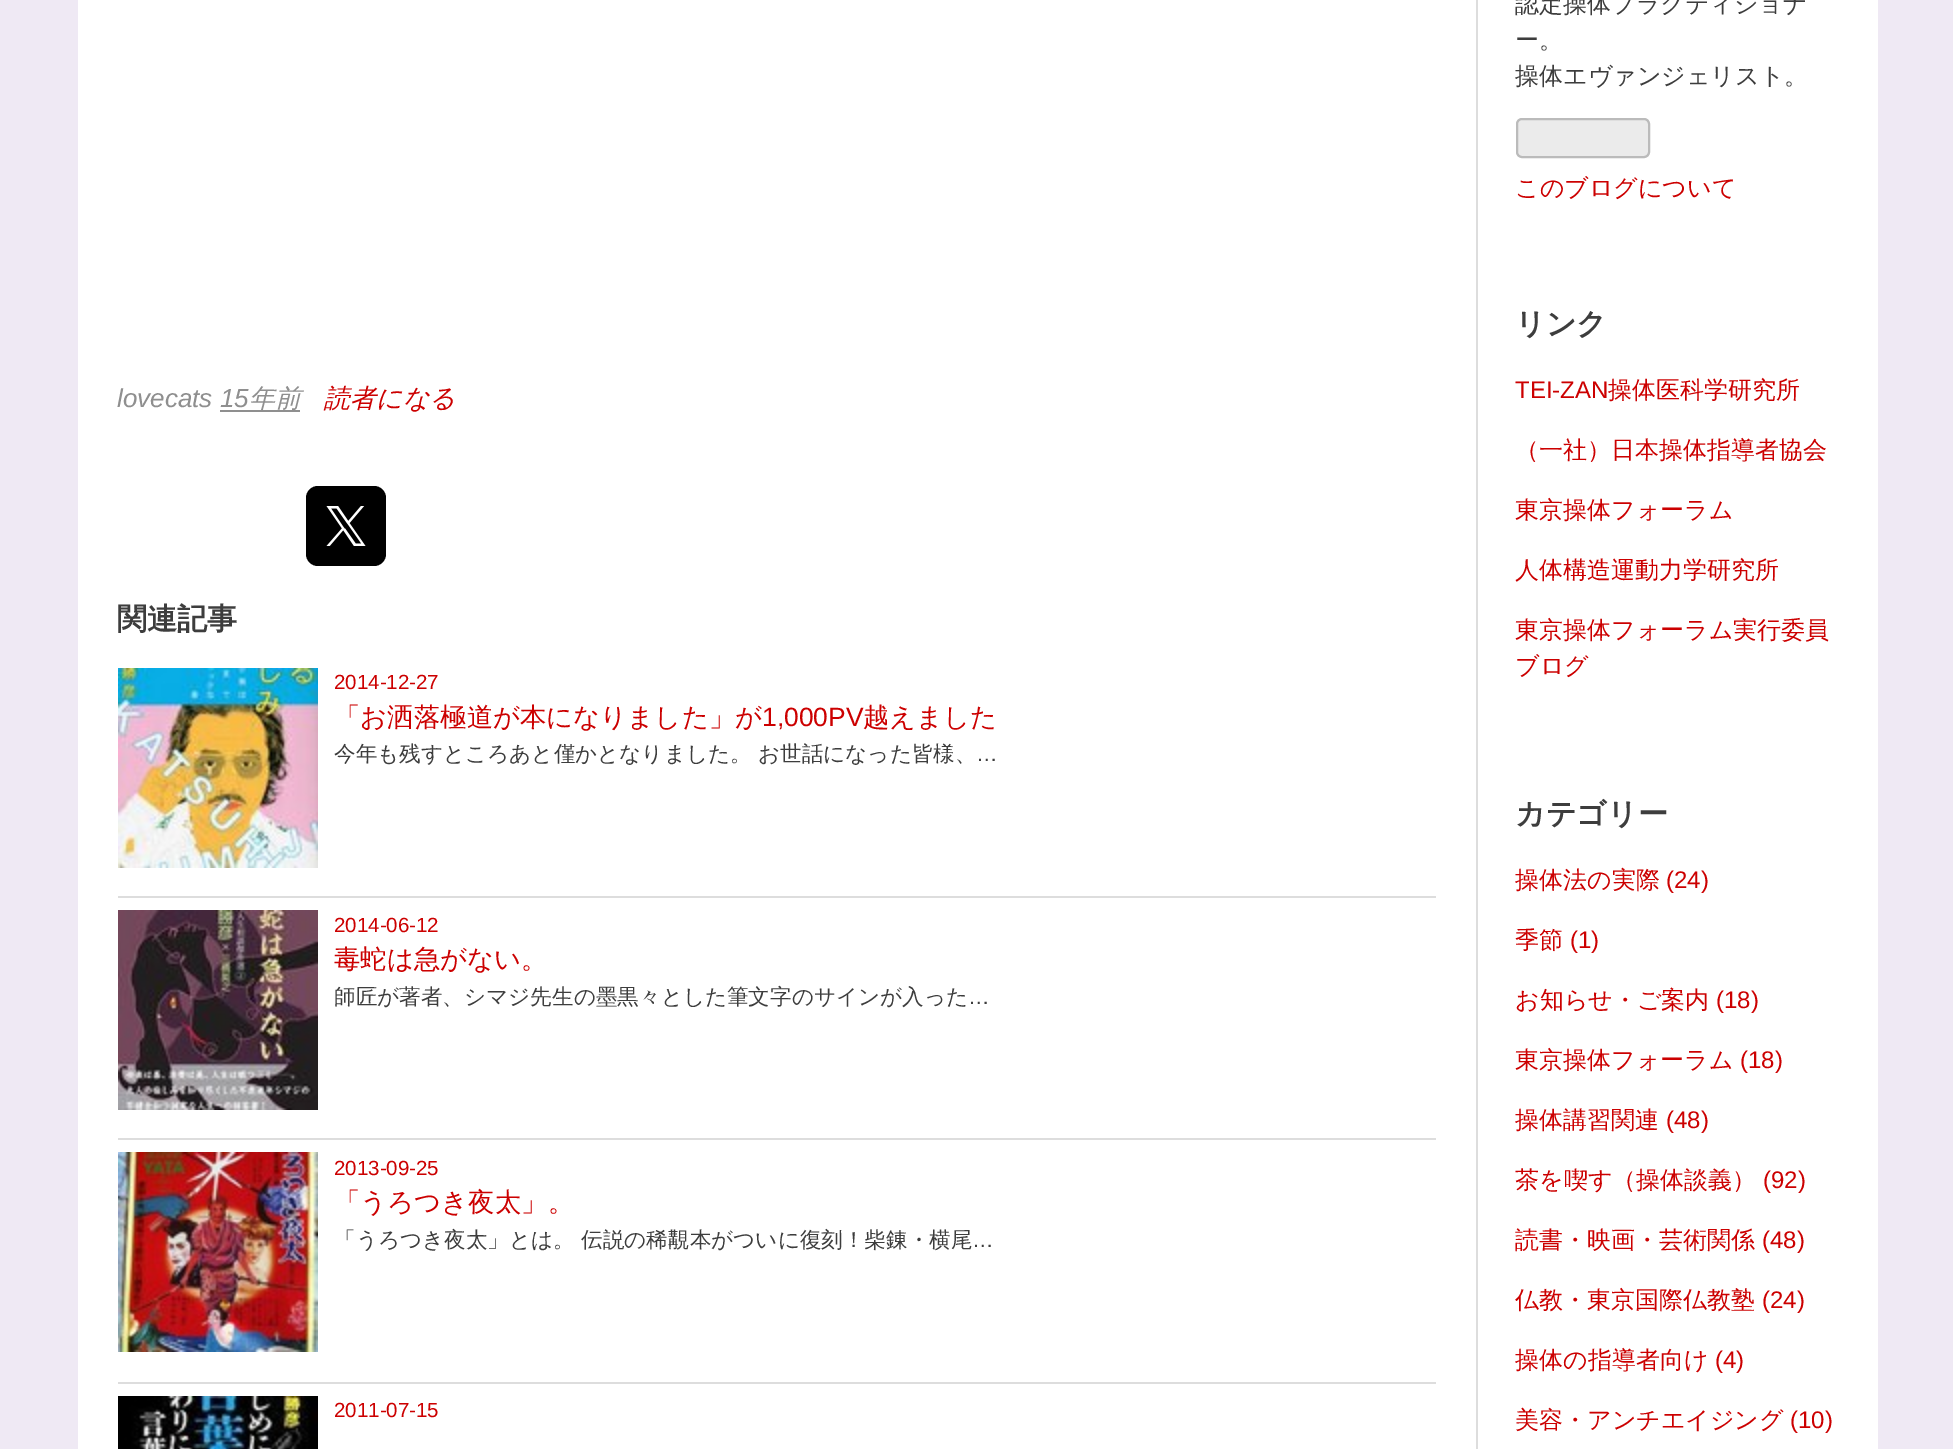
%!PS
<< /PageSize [1953 1449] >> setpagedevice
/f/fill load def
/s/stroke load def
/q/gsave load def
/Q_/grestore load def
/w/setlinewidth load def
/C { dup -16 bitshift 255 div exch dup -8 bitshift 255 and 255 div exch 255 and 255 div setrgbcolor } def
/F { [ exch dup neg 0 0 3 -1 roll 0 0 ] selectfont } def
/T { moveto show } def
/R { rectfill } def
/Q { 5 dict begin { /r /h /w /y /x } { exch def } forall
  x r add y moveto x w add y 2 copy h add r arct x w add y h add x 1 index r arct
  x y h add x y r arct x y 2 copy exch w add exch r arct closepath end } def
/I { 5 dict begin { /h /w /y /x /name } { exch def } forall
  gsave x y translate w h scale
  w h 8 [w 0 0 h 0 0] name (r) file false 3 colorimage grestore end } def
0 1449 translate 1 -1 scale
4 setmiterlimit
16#EFE9F4 C
0 0 1953 1449 R
16#FFFFFF C
78 0 1800 1449 R
16#DDDDDD C
1476 0 2 1449 R
/LiberationSans-Italic 26 F
16#8F8F8F C
(lovecats 15) 117 407 T
220 410 80 2 R
/WenQuanYiZenHei-MediumItalic 26 F
(年前) 249 407 T
16#CC0000 C
(読者になる) 324 407 T
16#000000 C
306 486 80 80 12 Q f
(1.rgb) 326 506 40 40 I
/WenQuanYiZenHei-Bold 30 F
16#3D3D3D C
(関連記事) 117 629 T
16#DDDDDD C
118 896 1318 2 R
(2.rgb) 118 668 200 200 I
/LiberationSans-Regular 20.5 F
16#CC0000 C
(2014-12-27) 334 689 T
/WenQuanYiZenHei-Medium 26.4 F
(「お洒落極道が本になりました」が) 334 726 T
/LiberationSans-Regular 26.4 F
(1,000PV) 762 726 T
/WenQuanYiZenHei-Medium 26.4 F
(越えました) 863 726 T
/WenQuanYiZenHei-Medium 21.6 F
16#3D3D3D C
(今年も残すところあと僅かとなりました。 お世話になった皆様、) 334 761 T
/LiberationSans-Regular 21.6 F
(…) 976 761 T
16#DDDDDD C
118 1138 1318 2 R
(3.rgb) 118 910 200 200 I
/LiberationSans-Regular 20.5 F
16#CC0000 C
(2014-06-12) 334 932 T
/WenQuanYiZenHei-Medium 26.4 F
(毒蛇は急がない。) 334 968 T
/WenQuanYiZenHei-Medium 21.6 F
16#3D3D3D C
(師匠が著者、シマジ先生の墨黒々とした筆文字のサインが入った) 334 1004 T
/LiberationSans-Regular 21.6 F
(…) 968 1004 T
16#DDDDDD C
118 1382 1318 2 R
(4.rgb) 118 1152 200 200 I
/LiberationSans-Regular 20.5 F
16#CC0000 C
(2013-09-25) 334 1175 T
/WenQuanYiZenHei-Medium 26.4 F
(「うろつき夜太」。) 334 1211 T
/WenQuanYiZenHei-Medium 21.6 F
16#3D3D3D C
(「うろつき夜太」とは。 伝説の稀覯本がついに復刻！柴錬・横尾) 334 1247 T
/LiberationSans-Regular 21.6 F
(…) 972 1247 T
(5.rgb) 118 1396 200 53 I
/LiberationSans-Regular 20.5 F
16#CC0000 C
(2011-07-15) 334 1417 T
/WenQuanYiZenHei-Medium 24 F
16#3D3D3D C
(認定操体プラクティショナ) 1515 12 T
(ー。) 1515 48 T
(操体エヴァンジェリスト。) 1515 84 T
16#EBEBEB C
1517 119 132 38 5 Q q f Q_
16#BBBBBB C
2 w
s
16#CC0000 C
(このブログについて) 1515 196 T
/WenQuanYiZenHei-Bold 30 F
16#3D3D3D C
(リンク) 1515 334 T
/LiberationSans-Regular 24 F
16#CC0000 C
(TEI-ZAN) 1515 398 T
/WenQuanYiZenHei-Medium 24 F
(操体医科学研究所) 1608 398 T
(（一社）日本操体指導者協会) 1515 458 T
(東京操体フォーラム) 1515 518 T
(人体構造運動力学研究所) 1515 578 T
(東京操体フォーラム実行委員) 1515 638 T
(ブログ) 1515 674 T
/WenQuanYiZenHei-Bold 30 F
16#3D3D3D C
(カテゴリー) 1515 824 T
/WenQuanYiZenHei-Medium 24 F
16#CC0000 C
(操体法の実際) 1515 888 T
/LiberationSans-Regular 24 F
(\(24\)) 1666 888 T
/WenQuanYiZenHei-Medium 24 F
(季節) 1515 948 T
/LiberationSans-Regular 24 F
(\(1\)) 1570 948 T
/WenQuanYiZenHei-Medium 24 F
(お知らせ・ご案内) 1515 1008 T
/LiberationSans-Regular 24 F
(\(18\)) 1716 1008 T
/WenQuanYiZenHei-Medium 24 F
(東京操体フォーラム) 1515 1068 T
/LiberationSans-Regular 24 F
(\(18\)) 1740 1068 T
/WenQuanYiZenHei-Medium 24 F
(操体講習関連) 1515 1128 T
/LiberationSans-Regular 24 F
(\(48\)) 1666 1128 T
/WenQuanYiZenHei-Medium 24 F
(茶を喫す（操体談義）) 1515 1188 T
/LiberationSans-Regular 24 F
(\(92\)) 1763 1188 T
/WenQuanYiZenHei-Medium 24 F
(読書・映画・芸術関係) 1515 1248 T
/LiberationSans-Regular 24 F
(\(48\)) 1762 1248 T
/WenQuanYiZenHei-Medium 24 F
(仏教・東京国際仏教塾) 1515 1308 T
/LiberationSans-Regular 24 F
(\(24\)) 1762 1308 T
/WenQuanYiZenHei-Medium 24 F
(操体の指導者向け) 1515 1368 T
/LiberationSans-Regular 24 F
(\(4\)) 1715 1368 T
/WenQuanYiZenHei-Medium 24 F
(美容・アンチエイジング) 1515 1428 T
/LiberationSans-Regular 24 F
(\(10\)) 1790 1428 T
showpage
